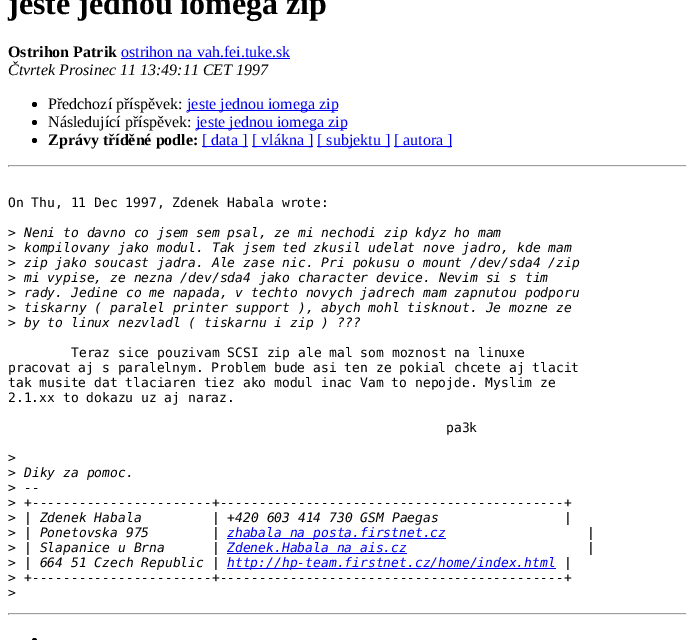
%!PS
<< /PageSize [695 640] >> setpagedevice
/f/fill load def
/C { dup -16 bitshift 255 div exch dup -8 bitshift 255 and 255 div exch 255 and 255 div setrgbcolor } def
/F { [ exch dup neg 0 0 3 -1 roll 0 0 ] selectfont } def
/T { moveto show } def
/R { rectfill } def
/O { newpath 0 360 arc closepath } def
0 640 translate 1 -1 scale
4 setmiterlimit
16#FFFFFF C
0 0 695 640 R
/LiberationSerif-Bold 32 F
16#000000 C
(jeste jednou iomega zip) 8 14 T
/LiberationSerif-Bold 16 F
(Ostrihon Patrik) 8 57 T
/LiberationSerif-Regular 16 F
16#0000EE C
(ostrihon na vah.fei.tuke.sk) 121 57 T
121 58 169 1 R
/LiberationSerif-Italic 16 F
16#000000 C
(Čtvrtek Prosinec 11 13:49:11 CET 1997) 8 75 T
34.5 104.5 2.5 O f
/LiberationSerif-Regular 16 F
(Předchozí příspěvek:) 48 109 T
16#0000EE C
187 110 151 1 R
(jeste jednou iomega zip) 187 109 T
16#000000 C
34.5 122.5 2.5 O f
(Následující příspěvek:) 48 127 T
16#0000EE C
196 128 151 1 R
(jeste jednou iomega zip) 196 127 T
16#000000 C
34.5 140.5 2.5 O f
/LiberationSerif-Bold 16 F
(Zprávy tříděné podle:) 48 145 T
16#0000EE C
202 146 46 1 R
/LiberationSerif-Regular 16 F
([ data ]) 202 145 T
252 146 61 1 R
([ vlákna ]) 252 145 T
317 146 73 1 R
([ subjektu ]) 317 145 T
394 146 58 1 R
([ autora ]) 394 145 T
16#9F9F9F C
8 165 679 1 R
16#EEEEEE C
686 165 1 2 R
8 166 679 1 R
16#9F9F9F C
8 165 1 2 R
/DejaVuSansMono-Regular 13 F
16#000000 C
(On Thu, 11 Dec 1997, Zdenek Habala wrote:) 8 207 T
(>) 8 237 T
/DejaVuSansMono-Italic 13 F
(Neni to davno co jsem sem psal, ze mi nechodi zip kdyz ho mam) 24 237 T
/DejaVuSansMono-Regular 13 F
(>) 8 252 T
/DejaVuSansMono-Italic 13 F
(kompilovany jako modul. Tak jsem ted zkusil udelat nove jadro, kde mam) 24 252 T
/DejaVuSansMono-Regular 13 F
(>) 8 267 T
/DejaVuSansMono-Italic 13 F
(zip jako soucast jadra. Ale zase nic. Pri pokusu o mount /dev/sda4 /zip) 24 267 T
/DejaVuSansMono-Regular 13 F
(>) 8 282 T
/DejaVuSansMono-Italic 13 F
(mi vypise, ze nezna /dev/sda4 jako character device. Nevim si s tim) 24 282 T
/DejaVuSansMono-Regular 13 F
(>) 8 297 T
/DejaVuSansMono-Italic 13 F
(rady. Jedine co me napada, v techto novych jadrech mam zapnutou podporu) 24 297 T
/DejaVuSansMono-Regular 13 F
(>) 8 312 T
/DejaVuSansMono-Italic 13 F
(tiskarny \( paralel printer support \), abych mohl tisknout. Je mozne ze) 24 312 T
/DejaVuSansMono-Regular 13 F
(>) 8 327 T
/DejaVuSansMono-Italic 13 F
(by to linux nezvladl \( tiskarnu i zip \) ???) 24 327 T
/DejaVuSansMono-Regular 13 F
(Teraz sice pouzivam SCSI zip ale mal som moznost na linuxe) 71 357 T
(pracovat aj s paralelnym. Problem bude asi ten ze pokial chcete aj tlacit) 8 372 T
(tak musite dat tlaciaren tiez ako modul inac Vam to nepojde. Myslim ze) 8 387 T
(2.1.xx to dokazu uz aj naraz.) 8 402 T
(pa3k) 446 432 T
(>) 8 462 T
(>) 8 477 T
/DejaVuSansMono-Italic 13 F
(Diky za pomoc.) 24 477 T
/DejaVuSansMono-Regular 13 F
(>) 8 492 T
/DejaVuSansMono-Italic 13 F
(--) 24 492 T
/DejaVuSansMono-Regular 13 F
(>) 8 507 T
/DejaVuSansMono-Italic 13 F
(+-----------------------+--------------------------------------------+) 24 507 T
/DejaVuSansMono-Regular 13 F
(>) 8 522 T
/DejaVuSansMono-Italic 13 F
(| Zdenek Habala         | +420 603 414 730 GSM Paegas                |) 24 522 T
/DejaVuSansMono-Regular 13 F
(>) 8 537 T
/DejaVuSansMono-Italic 13 F
(| Ponetovska 975        |) 24 537 T
16#0000EE C
227 538 219 1 R
(zhabala na posta.firstnet.cz) 227 537 T
16#000000 C
(|) 587 537 T
/DejaVuSansMono-Regular 13 F
(>) 8 552 T
/DejaVuSansMono-Italic 13 F
(| Slapanice u Brna      |) 24 552 T
16#0000EE C
(Zdenek.Habala na ais.cz) 227 552 T
227 553 180 1 R
16#000000 C
(|) 587 552 T
/DejaVuSansMono-Regular 13 F
(>) 8 567 T
/DejaVuSansMono-Italic 13 F
(| 664 51 Czech Republic |) 24 567 T
16#0000EE C
227 568 329 1 R
(http://hp-team.firstnet.cz/home/index.html) 227 567 T
16#000000 C
(|) 564 567 T
/DejaVuSansMono-Regular 13 F
(>) 8 582 T
/DejaVuSansMono-Italic 13 F
(+-----------------------+--------------------------------------------+) 24 582 T
/DejaVuSansMono-Regular 13 F
(>) 8 597 T
16#9F9F9F C
8 613 679 1 R
16#EEEEEE C
686 613 1 2 R
8 614 679 1 R
16#9F9F9F C
8 613 1 2 R
16#000000 C
34.5 640.5 2.5 O f
showpage
